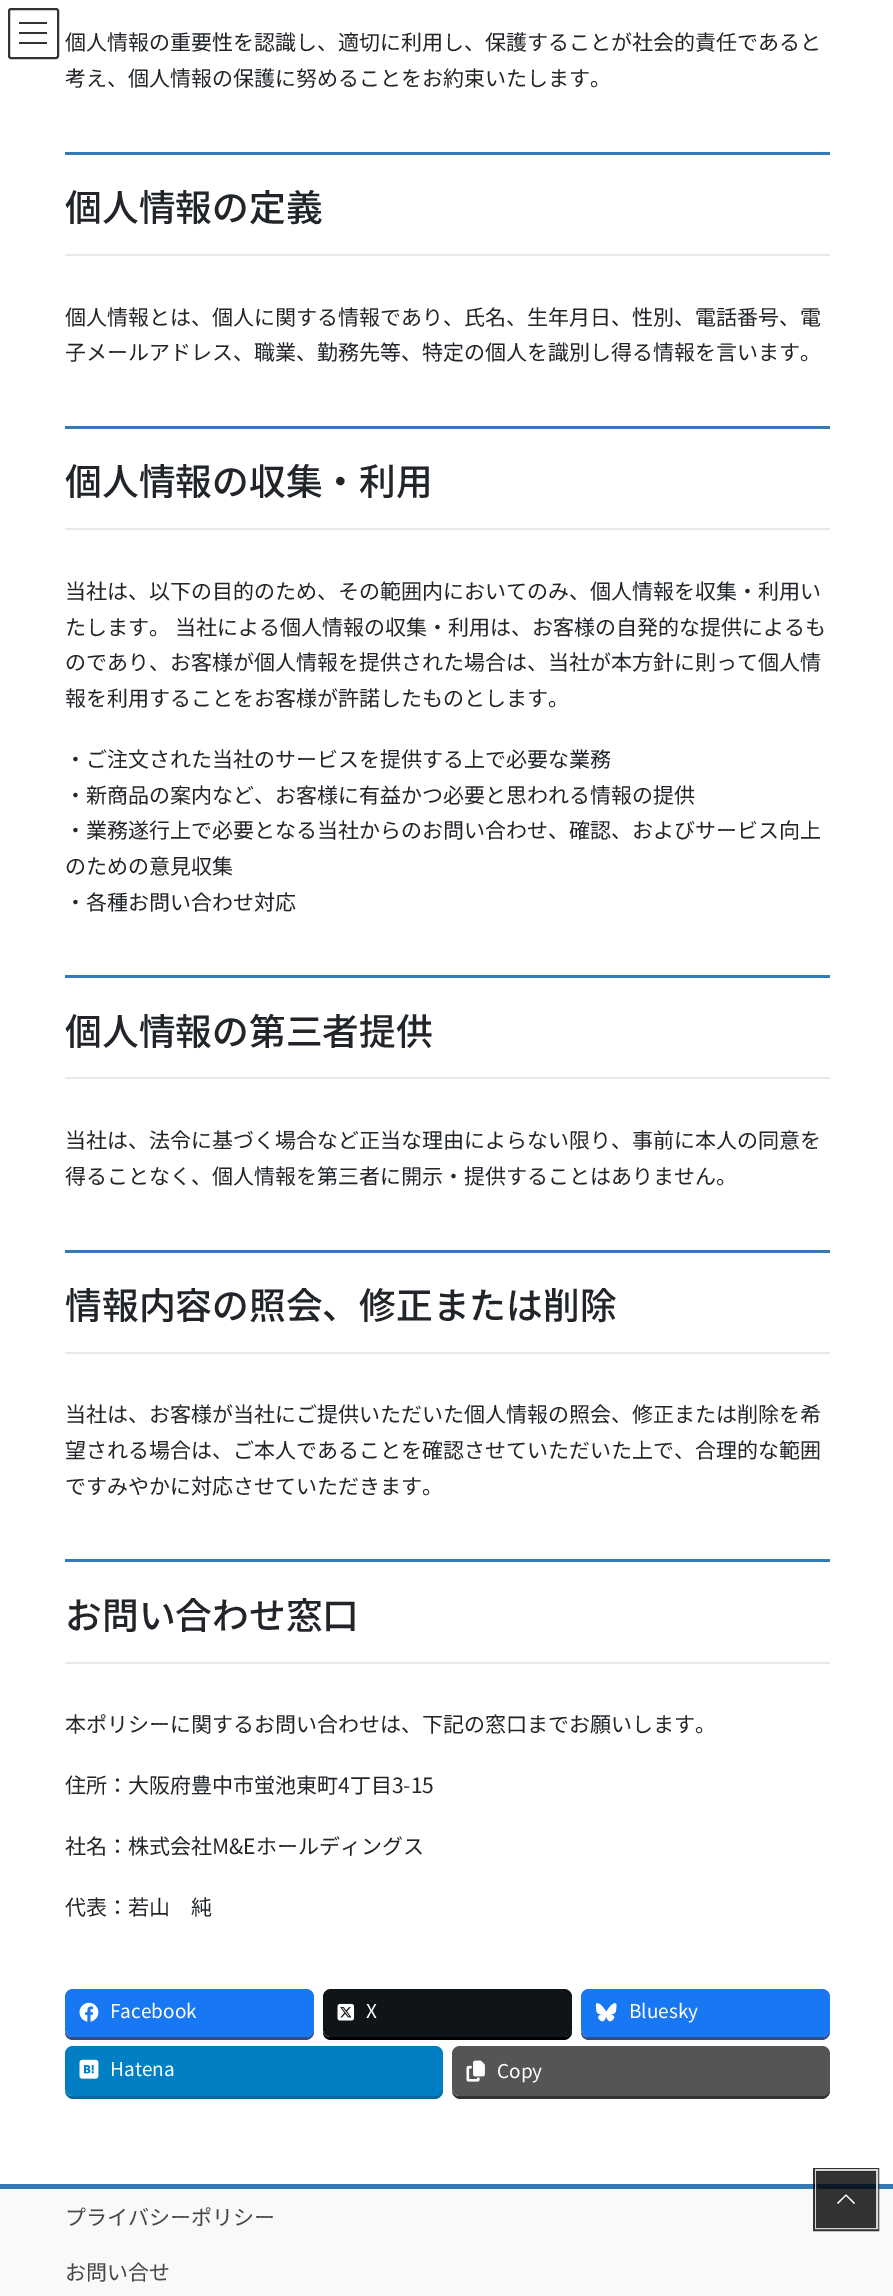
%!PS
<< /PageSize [893 2296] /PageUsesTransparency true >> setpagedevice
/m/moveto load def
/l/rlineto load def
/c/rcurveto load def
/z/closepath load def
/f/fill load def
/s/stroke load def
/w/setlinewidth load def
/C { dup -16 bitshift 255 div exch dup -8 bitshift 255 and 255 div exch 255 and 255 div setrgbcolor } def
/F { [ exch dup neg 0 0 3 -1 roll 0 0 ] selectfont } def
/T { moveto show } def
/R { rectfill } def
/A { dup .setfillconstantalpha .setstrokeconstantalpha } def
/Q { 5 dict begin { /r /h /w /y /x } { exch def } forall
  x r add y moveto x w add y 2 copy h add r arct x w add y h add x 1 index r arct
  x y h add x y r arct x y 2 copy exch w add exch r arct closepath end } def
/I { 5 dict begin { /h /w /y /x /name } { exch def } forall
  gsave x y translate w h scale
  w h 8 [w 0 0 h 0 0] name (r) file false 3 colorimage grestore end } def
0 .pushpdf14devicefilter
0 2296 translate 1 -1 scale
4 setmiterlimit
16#FFFFFF C
0 0 893 2296 R
16#333333 C
19 22 28 2 R
19 32 28 2 R
19 42 28 2 R
2 w
9 9 49 49 2 Q s
/NotoSansJP-Regular 21 F
16#212529 C
(個人情報の重要性を認識し、適切に利用し、保護することが社会的責任であると) 65 50 T
(考え、個人情報の保護に努めることをお約束いたします。) 65 86 T
16#337AB7 C
65 152 765 3 R
16#E9E9E9 C
65 254 765 2 R
/NotoSansJP-Medium 36.75 F
16#212529 C
(個人情報の定義) 65 221 T
/NotoSansJP-Regular 21 F
(個人情報とは、個人に関する情報であり、氏名、生年月日、性別、電話番号、電) 65 325 T
(子メールアドレス、職業、勤務先等、特定の個人を識別し得る情報を言います。) 65 360 T
16#337AB7 C
65 426 765 3 R
16#E9E9E9 C
65 528 765 2 R
/NotoSansJP-Medium 36.75 F
16#212529 C
(個人情報の収集・利用) 65 495 T
/NotoSansJP-Regular 21 F
(当社は、以下の目的のため、その範囲内においてのみ、個人情報を収集・利用い) 65 599 T
(たします。 当社による個人情報の収集・利用は、お客様の自発的な提供によるも) 65 635 T
(のであり、お客様が個人情報を提供された場合は、当社が本方針に則って個人情) 65 670 T
(報を利用することをお客様が許諾したものとします。) 65 706 T
(・ご注文された当社のサービスを提供する上で必要な業務) 65 767 T
(・新商品の案内など、お客様に有益かつ必要と思われる情報の提供) 65 803 T
(・業務遂行上で必要となる当社からのお問い合わせ、確認、およびサービス向上) 65 838 T
(のための意見収集) 65 874 T
(・各種お問い合わせ対応) 65 910 T
16#337AB7 C
65 975 765 3 R
16#E9E9E9 C
65 1077 765 2 R
/NotoSansJP-Medium 36.75 F
16#212529 C
(個人情報の第三者提供) 65 1045 T
/NotoSansJP-Regular 21 F
(当社は、法令に基づく場合など正当な理由によらない限り、事前に本人の同意を) 65 1148 T
(得ることなく、個人情報を第三者に開示・提供することはありません。) 65 1184 T
16#337AB7 C
65 1250 765 3 R
16#E9E9E9 C
65 1352 765 2 R
/NotoSansJP-Medium 36.75 F
16#212529 C
(情報内容の照会、修正または削除) 65 1319 T
/NotoSansJP-Regular 21 F
(当社は、お客様が当社にご提供いただいた個人情報の照会、修正または削除を希) 65 1422 T
(望される場合は、ご本人であることを確認させていただいた上で、合理的な範囲) 65 1458 T
(ですみやかに対応させていただきます。) 65 1494 T
16#337AB7 C
65 1559 765 3 R
16#E9E9E9 C
65 1662 765 2 R
/NotoSansJP-Medium 36.75 F
16#212529 C
(お問い合わせ窓口) 65 1629 T
/NotoSansJP-Regular 21 F
(本ポリシーに関するお問い合わせは、下記の窓口までお願いします。) 65 1732 T
(住所：大阪府豊中市蛍池東町4丁目3-15) 65 1793 T
(社名：株式会社M&Eホールディングス) 65 1854 T
(代表：若山　純) 65 1915 T
16#344E84 C
65 2032 m 0 5 4 8 8 8 c 233 0 l 4 0 8 -4 8 -8 c 0 -32 l 0 -3 l 0 33 l 0 4 -4 7 -8 7 c -234 0 l -3 0 -6 -2 -7 -5 c z f
16#1877F2 C
65 1989 249 48 8 Q f
(1.rgb) 79 2002 20 20 I
/NotoSansJP-Regular 19 F
16#FFFFFF C
(Facebook) 110 2018 T
16#000000 C
323 2032 m 0 5 4 8 8 8 c 233 0 l 4 0 8 -4 8 -8 c 0 -32 l 0 -3 l 0 33 l 0 4 -4 7 -8 7 c -234 0 l -3 0 -6 -2 -7 -5 c z f
16#0F1419 C
323 1989 249 48 8 Q f
(2.rgb) 337 2003 18 18 I
16#FFFFFF C
(X) 366 2018 T
16#344E84 C
581 2032 m 0 5 4 8 8 8 c 233 0 l 4 0 8 -4 8 -8 c 0 -32 l 0 -3 l 0 33 l 0 4 -4 7 -8 7 c -234 0 l -3 0 -6 -2 -7 -5 c z f
16#1877F2 C
581 1989 249 48 8 Q f
(3.rgb) 595 2003 22 19 I
16#FFFFFF C
(Bluesky) 629 2018 T
16#00679F C
65 2091 m 0 4 4 8 8 8 c 362 0 l 4 0 8 -4 8 -8 c 0 -34 l -1 -3 l 0 34 l 0 4 -3 8 -7 8 c -363 0 l -3 0 -6 -2 -7 -5 c z f
16#007FC5 C
65 2046 378 50 8 Q f
(4.rgb) 79 2059 20 20 I
16#FFFFFF C
(Hatena) 110 2076 T
16#333333 C
452 2091 m 0 4 4 8 8 8 c 362 0 l 4 0 8 -4 8 -8 c 0 -34 l 0 -3 l 0 34 l 0 4 -4 8 -8 8 c -363 0 l -3 0 -6 -2 -7 -5 c z f
16#555555 C
452 2046 378 50 8 Q f
(5.rgb) 466 2060 19 22 I
16#FFFFFF C
(Copy) 497 2078 T
16#F9F9F9 C
0 2189 893 107 R
16#337AB7 C
0 2184 893 5 R
0.8 A
16#000000 C
3 w
814.5 2169.5 63 60 rectstroke
16#FFFFFF C
2 w
816 2170 61 58 rectstroke
16#000000 C
816 2171 60 57 R
1 A
16#FFFFFF C
855 2203 m -1 1 l -8 -8 l -8 8 l -1 -1 l 9 -8.5 l z f
/NotoSansJP-Regular 21 F
16#464646 C
(プライバシーポリシー) 65 2225 T
(お問い合せ) 65 2280 T
.poppdf14devicefilter showpage
